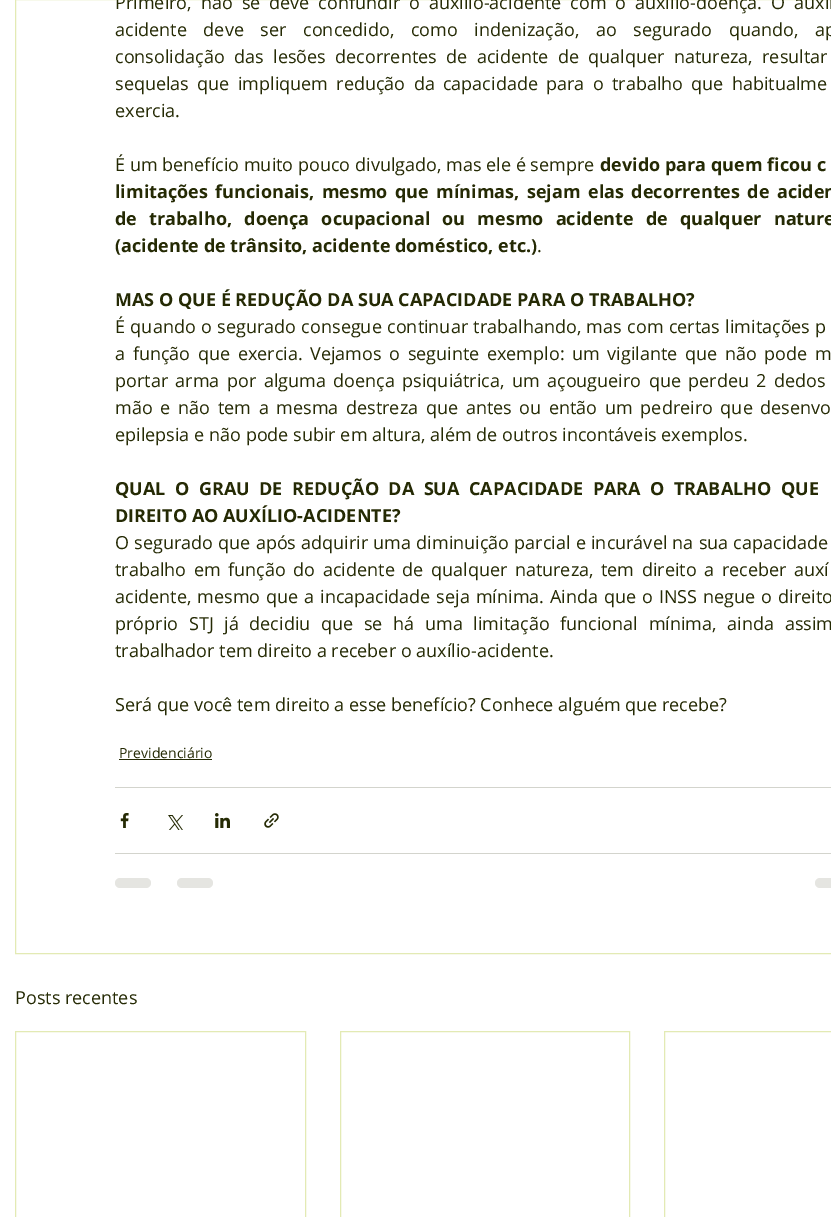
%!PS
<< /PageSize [831 1217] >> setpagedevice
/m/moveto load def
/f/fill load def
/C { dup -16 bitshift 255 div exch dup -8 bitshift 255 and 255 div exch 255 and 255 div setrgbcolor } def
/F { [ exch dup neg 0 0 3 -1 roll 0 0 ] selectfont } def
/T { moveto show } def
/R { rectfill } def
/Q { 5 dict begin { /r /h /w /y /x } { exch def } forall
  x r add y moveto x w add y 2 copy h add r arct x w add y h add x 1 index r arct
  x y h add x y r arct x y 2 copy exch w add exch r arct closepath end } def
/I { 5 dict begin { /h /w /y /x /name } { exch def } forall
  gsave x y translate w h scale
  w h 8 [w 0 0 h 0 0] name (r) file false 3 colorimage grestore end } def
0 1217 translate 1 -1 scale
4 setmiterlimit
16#FFFFFF C
0 0 831 1217 R
16#E3EAB4 C
15.5 -.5 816 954 rectstroke
/OpenSans-Regular 18 F
16#252A04 C
115 9 m 4.25 0 32 (Primeiro, não se deve confundir o auxílio-acidente com o auxílio-doença. O auxíl) widthshow
115 36 m 12 0 32 (acidente deve ser concedido, como indenização, ao segurado quando, ap) widthshow
115 63 m 4.75 0 32 (consolidação das lesões decorrentes de acidente de qualquer natureza, resultar) widthshow
115 90 m 3.6 0 32 (sequelas que impliquem redução da capacidade para o trabalho que habitualme) widthshow
(exercia.) 115 117 T
(É um benefício muito pouco divulgado, mas ele é sempre) 115 171 T
/OpenSans-Bold 18 F
(devido para quem ficou c) 600 171 T
115 198 m 2.75 0 32 (limitações funcionais, mesmo que mínimas, sejam elas decorrentes de aciden) widthshow
115 225 m 7.5 0 32 (de trabalho, doença ocupacional ou mesmo acidente de qualquer nature) widthshow
(\(acidente de trânsito, acidente doméstico, etc.\)) 115 252 T
/OpenSans-Regular 18 F
(.) 537 252 T
/OpenSans-Bold 18 F
(MAS O QUE É REDUÇÃO DA SUA CAPACIDADE PARA O TRABALHO?) 115 306 T
/OpenSans-Regular 18 F
115 333 m .75 0 32 (É quando o segurado consegue continuar trabalhando, mas com certas limitações p) widthshow
115 360 m 2.9 0 32 (a função que exercia. Vejamos o seguinte exemplo: um vigilante que não pode m) widthshow
115 387 m 2.75 0 32 (portar arma por alguma doença psiquiátrica, um açougueiro que perdeu 2 dedos) widthshow
115 414 m 3 0 32 (mão e não tem a mesma destreza que antes ou então um pedreiro que desenvo) widthshow
(epilepsia e não pode subir em altura, além de outros incontáveis exemplos.) 115 441 T
/OpenSans-Bold 18 F
115 495 m 4.75 0 32 (QUAL O GRAU DE REDUÇÃO DA SUA CAPACIDADE PARA O TRABALHO QUE) widthshow
(DIREITO AO AUXÍLIO-ACIDENTE?) 115 522 T
/OpenSans-Regular 18 F
115 549 m .5 0 32 (O segurado que após adquirir uma diminuição parcial e incurável na sua capacidade) widthshow
115 576 m 2.9 0 32 (trabalho em função do acidente de qualquer natureza, tem direito a receber auxí) widthshow
115 603 m 1.25 0 32 (acidente, mesmo que a incapacidade seja mínima. Ainda que o INSS negue o direito) widthshow
115 630 m 6 0 32 (próprio STJ já decidiu que se há uma limitação funcional mínima, ainda assim) widthshow
(trabalhador tem direito a receber o auxílio-acidente.) 115 657 T
(Será que você tem direito a esse benefício? Conhece alguém que recebe?) 115 711 T
/OpenSans-Regular 14 F
(Previdenciário) 119 758 T
119 759 93 1 R
16#D3D4CD C
115 787 716 1 R
(1.rgb) 120 813 9 15 I
(2.rgb) 168 815 15 15 I
(3.rgb) 215 813 15 15 I
(4.rgb) 264 813 15 15 I
115 853 716 1 R
16#E5E5E1 C
115 878 36 10 5 Q f
177 878 36 10 5 Q f
815 878 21 10 5 Q f
/OpenSans-Regular 18 F
16#252A04 C
(Posts recentes) 15 1004 T
16#E3EAB4 C
15.5 1031.5 290 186 rectstroke
340.5 1031.5 289 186 rectstroke
664.5 1031.5 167 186 rectstroke
showpage
